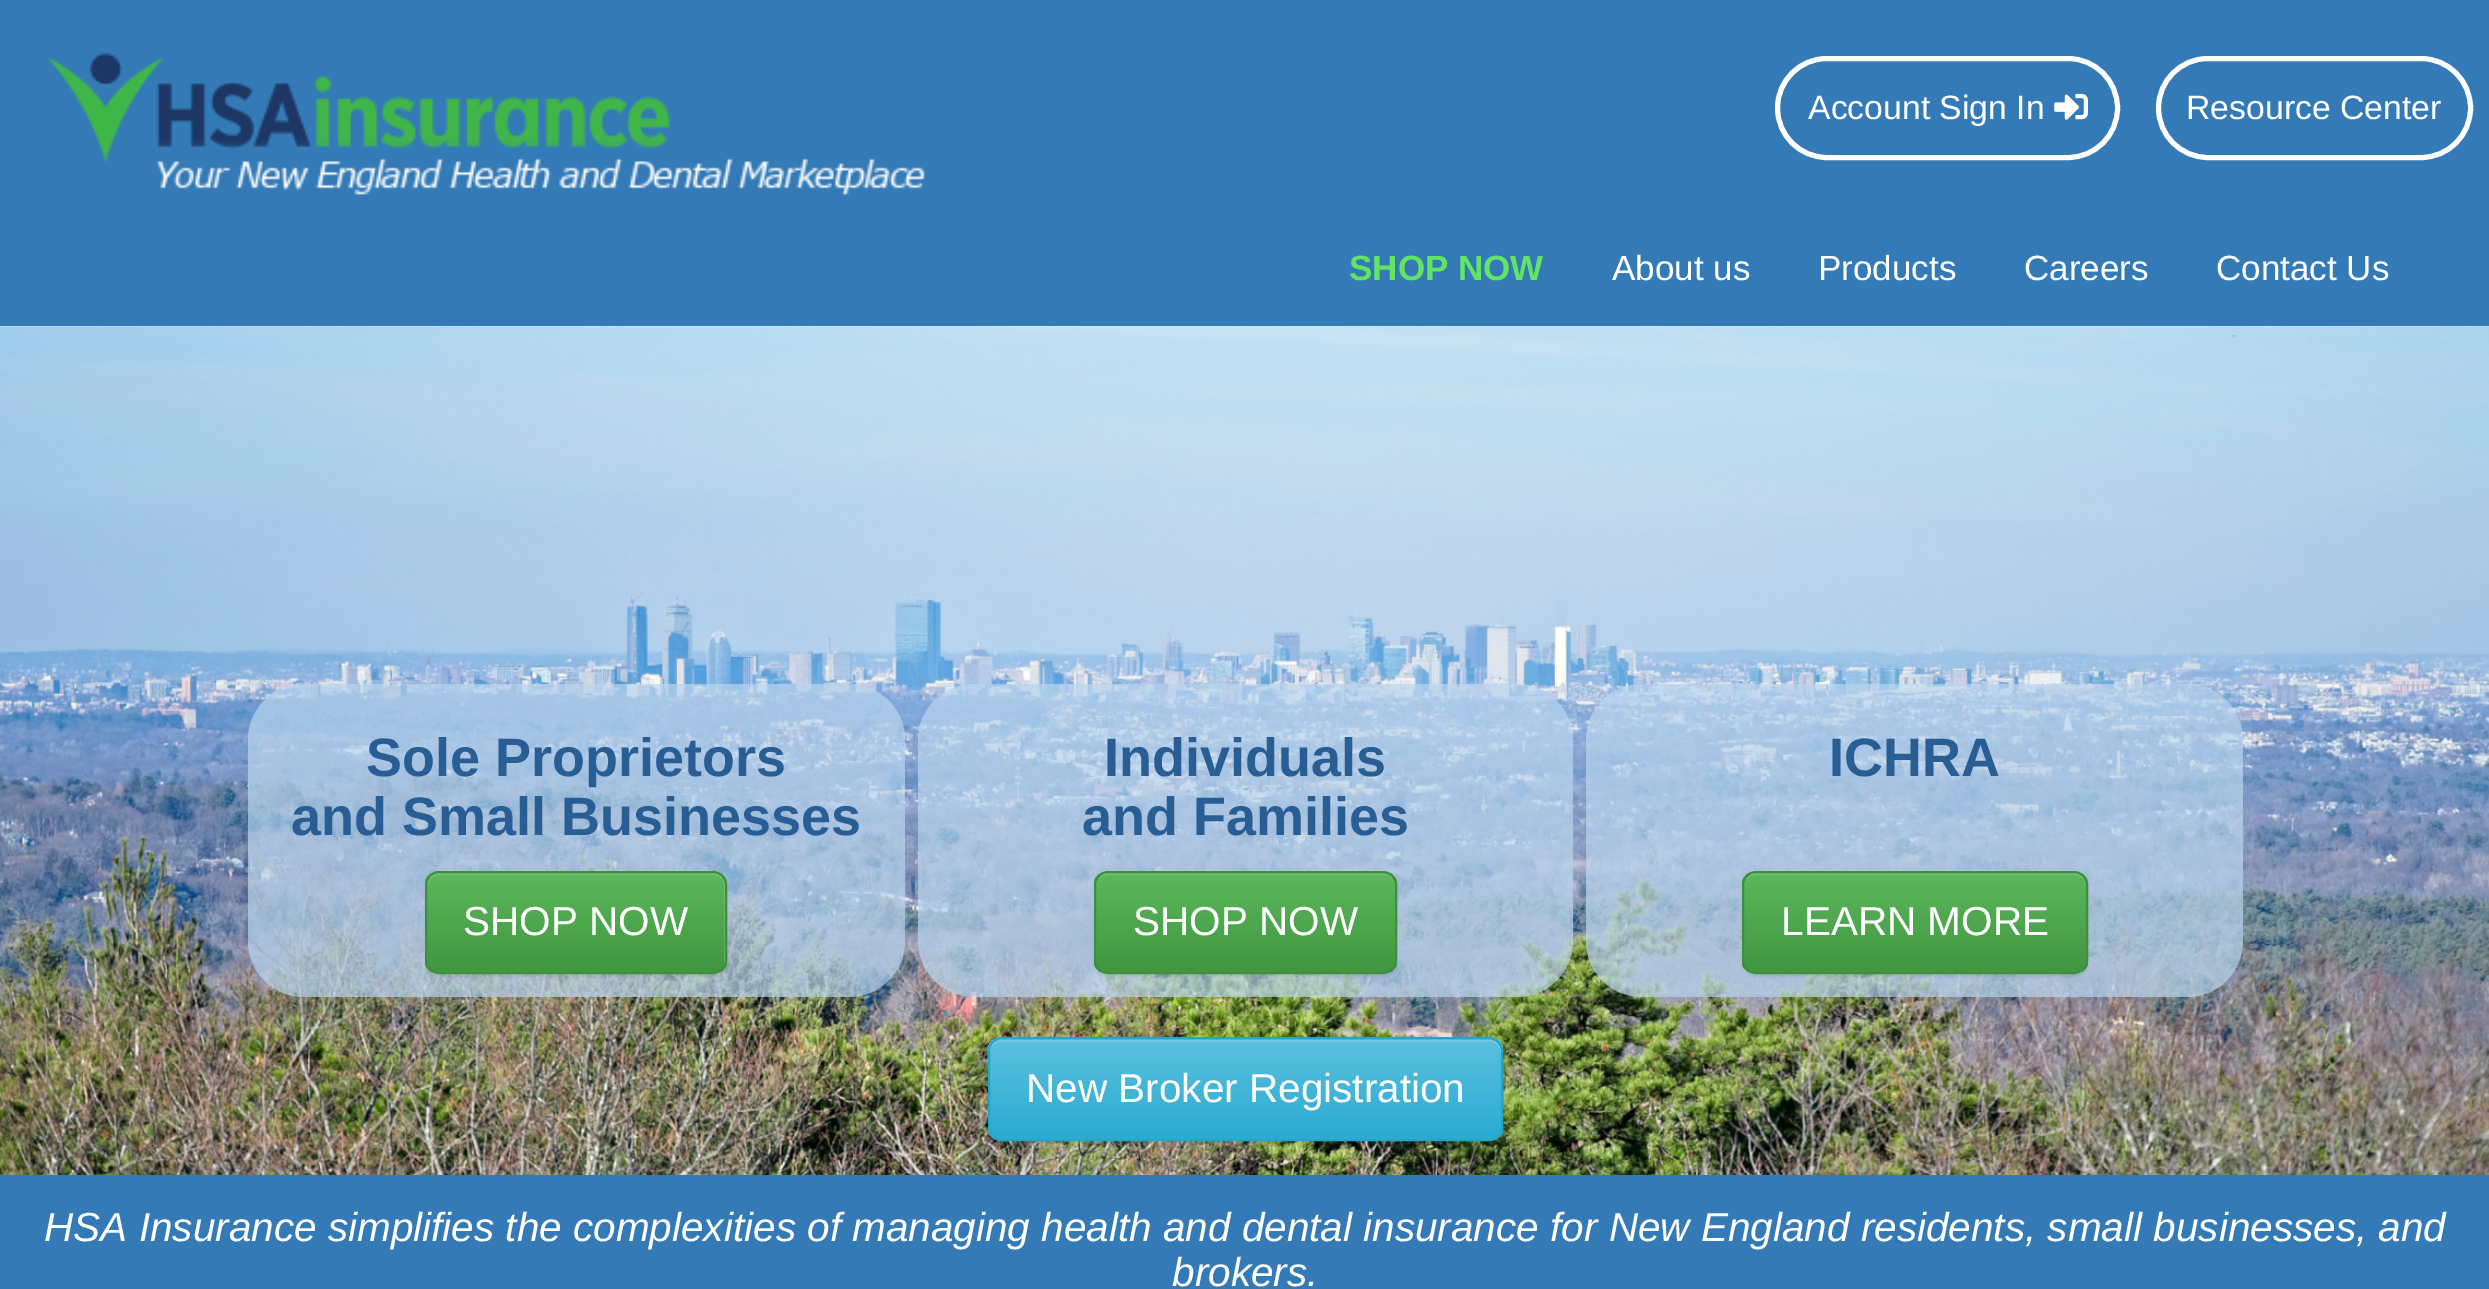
%!PS
<< /PageSize [2489 1289] /PageUsesTransparency true >> setpagedevice
/m/moveto load def
/l/rlineto load def
/c/rcurveto load def
/z/closepath load def
/f/fill load def
/s/stroke load def
/q/gsave load def
/Q_/grestore load def
/w/setlinewidth load def
/C { dup -16 bitshift 255 div exch dup -8 bitshift 255 and 255 div exch 255 and 255 div setrgbcolor } def
/F { [ exch dup neg 0 0 3 -1 roll 0 0 ] selectfont } def
/T { moveto show } def
/R { rectfill } def
/A { dup .setfillconstantalpha .setstrokeconstantalpha } def
/Q { 5 dict begin { /r /h /w /y /x } { exch def } forall
  x r add y moveto x w add y 2 copy h add r arct x w add y h add x 1 index r arct
  x y h add x y r arct x y 2 copy exch w add exch r arct closepath end } def
/S { 12 dict begin { /a /b /q /h /w /y /x } { exch def } forall gsave /was 0 def
  9 -2 -9 { dup b mul 4 div /e exch def 1 sub .425 mul 2.718 exch exp 1 add a .99 .min exch div /now exch def
    1 1 now sub 1 was sub div sub A /was now def
    w h .min e 2 mul add 0 gt { x e sub y e sub w e 2 mul add h e 2 mul add
      q e add b .6 mul add w h .min 2 div e add .min 0 .max Q fill } if } for grestore end } def
/I { 5 dict begin { /h /w /y /x /name } { exch def } forall
  gsave x y translate w h scale
  w h 8 [w 0 0 h 0 0] name (r) file false 3 colorimage grestore end } def
0 .pushpdf14devicefilter
0 1289 translate 1 -1 scale
4 setmiterlimit
16#FFFFFF C
0 0 2489 1289 R
16#337AB7 C
0 0 2489 326 R
(1.rgb) 46 52 879 143 I
16#FFFFFF C
5 w
1777.5 58.5 340 99 49.5 Q s
/LiberationSans-Regular 33.75 F
(Account Sign In) 1808 119 T
(2.rgb) 2054 93 34 27 I
2158.5 58.5 312 99 49.5 Q s
(Resource Center) 2186 119 T
/LiberationSans-Bold 35 F
16#62E564 C
(SHOP NOW) 1349 280 T
/LiberationSans-Regular 35 F
16#FFFFFF C
(About us) 1612 280 T
(Products) 1818 280 T
(Careers) 2024 280 T
(Contact Us) 2216 280 T
(3.rgb) 0 326 2489 849 I
0.7 A
16#B9D5EE C
248 684 657 313 56 Q f
/LiberationSans-Bold 54 F
1 A
16#295E95 C
(Sole Proprietors) 366 776 T
(and Small Businesses) 291 835 T
16#000000 C
425 873 302 104 14 1 .07 S
q
425 871 302 103 14 Q clip newpath
q 425 873 m 302 0 l 0 99 l -302 0 l z clip newpath
<< /ShadingType 2 /ColorSpace /DeviceRGB /Coords [576 873 576 972] /Extend [true true] /Function << /FunctionType 2 /Domain [0 1] /C0 [.361 .722 .361] /C1 [.255 .588 .255] /N 1 >> >> shfill Q_
Q_
0.15 A
16#FFFFFF C
439 875 m 274 0 l 6 0 11 5 11 11 c 0 77 l -1 4 l 1 -2 2 -4 2 -6 c 0 -77 l 0 -6 -5 -11 -11 -11 c -275 0 l -6 0 -11 5 -11 11 c 0 2 l 0 -6 5 -11 11 -11 c z f
1 A
16#3E8F3E C
2 w
426 872 300 101 13 Q s
/LiberationSans-Regular 40.5 F
16#FFFFFF C
(SHOP NOW) 463 935 T
0.7 A
16#B9D5EE C
918 684 655 313 56 Q f
/LiberationSans-Bold 54 F
1 A
16#295E95 C
(Individuals) 1104 776 T
(and Families) 1082 835 T
16#000000 C
1094 873 303 104 14 1 .07 S
q
1094 871 303 103 14 Q clip newpath
q 1094 873 m 303 0 l 0 99 l -303 0 l z clip newpath
<< /ShadingType 2 /ColorSpace /DeviceRGB /Coords [1245 873 1245 972] /Extend [true true] /Function << /FunctionType 2 /Domain [0 1] /C0 [.361 .722 .361] /C1 [.255 .588 .255] /N 1 >> >> shfill Q_
Q_
0.15 A
16#FFFFFF C
1107 875 m 277 0 l 6 0 11 5 11 11 c 0 -2 l 0 -6 -5 -11 -11 -11 c -277 0 l -6 0 -11 5 -11 11 c 0 2 l 0 -6 5 -11 11 -11 c z f
1 A
16#3E8F3E C
1095 872 301 101 13 Q s
/LiberationSans-Regular 40.5 F
16#FFFFFF C
(SHOP NOW) 1133 935 T
0.7 A
16#B9D5EE C
1586 684 657 313 56 Q f
/LiberationSans-Bold 54 F
1 A
16#295E95 C
(ICHRA) 1829 776 T
16#000000 C
1742 873 346 104 14 1 .07 S
q
1742 871 346 103 14 Q clip newpath
q 1742 873 m 346 0 l 0 99 l -346 0 l z clip newpath
<< /ShadingType 2 /ColorSpace /DeviceRGB /Coords [1915 873 1915 972] /Extend [true true] /Function << /FunctionType 2 /Domain [0 1] /C0 [.361 .722 .361] /C1 [.255 .588 .255] /N 1 >> >> shfill Q_
Q_
0.15 A
16#FFFFFF C
1755 875 m 319 0 l 7 0 12 5 12 11 c 0 -2 l 0 -6 -5 -11 -11 -11 c -320 0 l -6 0 -11 5 -11 11 c 0 2 l 0 -6 5 -11 11 -11 c z f
1 A
16#3E8F3E C
1743 872 344 101 13 Q s
/LiberationSans-Regular 40.5 F
16#FFFFFF C
(LEARN MORE) 1781 935 T
16#000000 C
988 1040 515 103 14 1 .07 S
16#5BC0DE C
988 1037 515 104 14 Q f
q
988 1037 515 104 14 Q clip newpath
q 988 1040 m 515 0 l 0 99 l -515 0 l z clip newpath
<< /ShadingType 2 /ColorSpace /DeviceRGB /Coords [1245 1040 1245 1139] /Extend [true true] /Function << /FunctionType 2 /Domain [0 1] /C0 [.357 .753 .871] /C1 [.165 .671 .824] /N 1 >> >> shfill Q_
Q_
0.15 A
16#FFFFFF C
1001 1042 m 489 0 l 6 0 11 5 11 11 c 0 -2 l 0 -6 -5 -11 -11 -11 c -489 0 l -6 0 -11 5 -11 11 c 0 2 l 0 -6 5 -11 11 -11 c z f
1 A
16#28A4C9 C
989 1038 513 102 13 Q s
16#FFFFFF C
(New Broker Registration) 1026 1102 T
16#337AB7 C
0 1175 2489 114 R
/LiberationSans-Italic 40.5 F
16#FFFFFF C
(HSA Insurance simplifies the complexities of managing health and dental insurance for New England residents, small businesses, and) 44 1241 T
(brokers.) 1172 1286 T
.poppdf14devicefilter showpage
